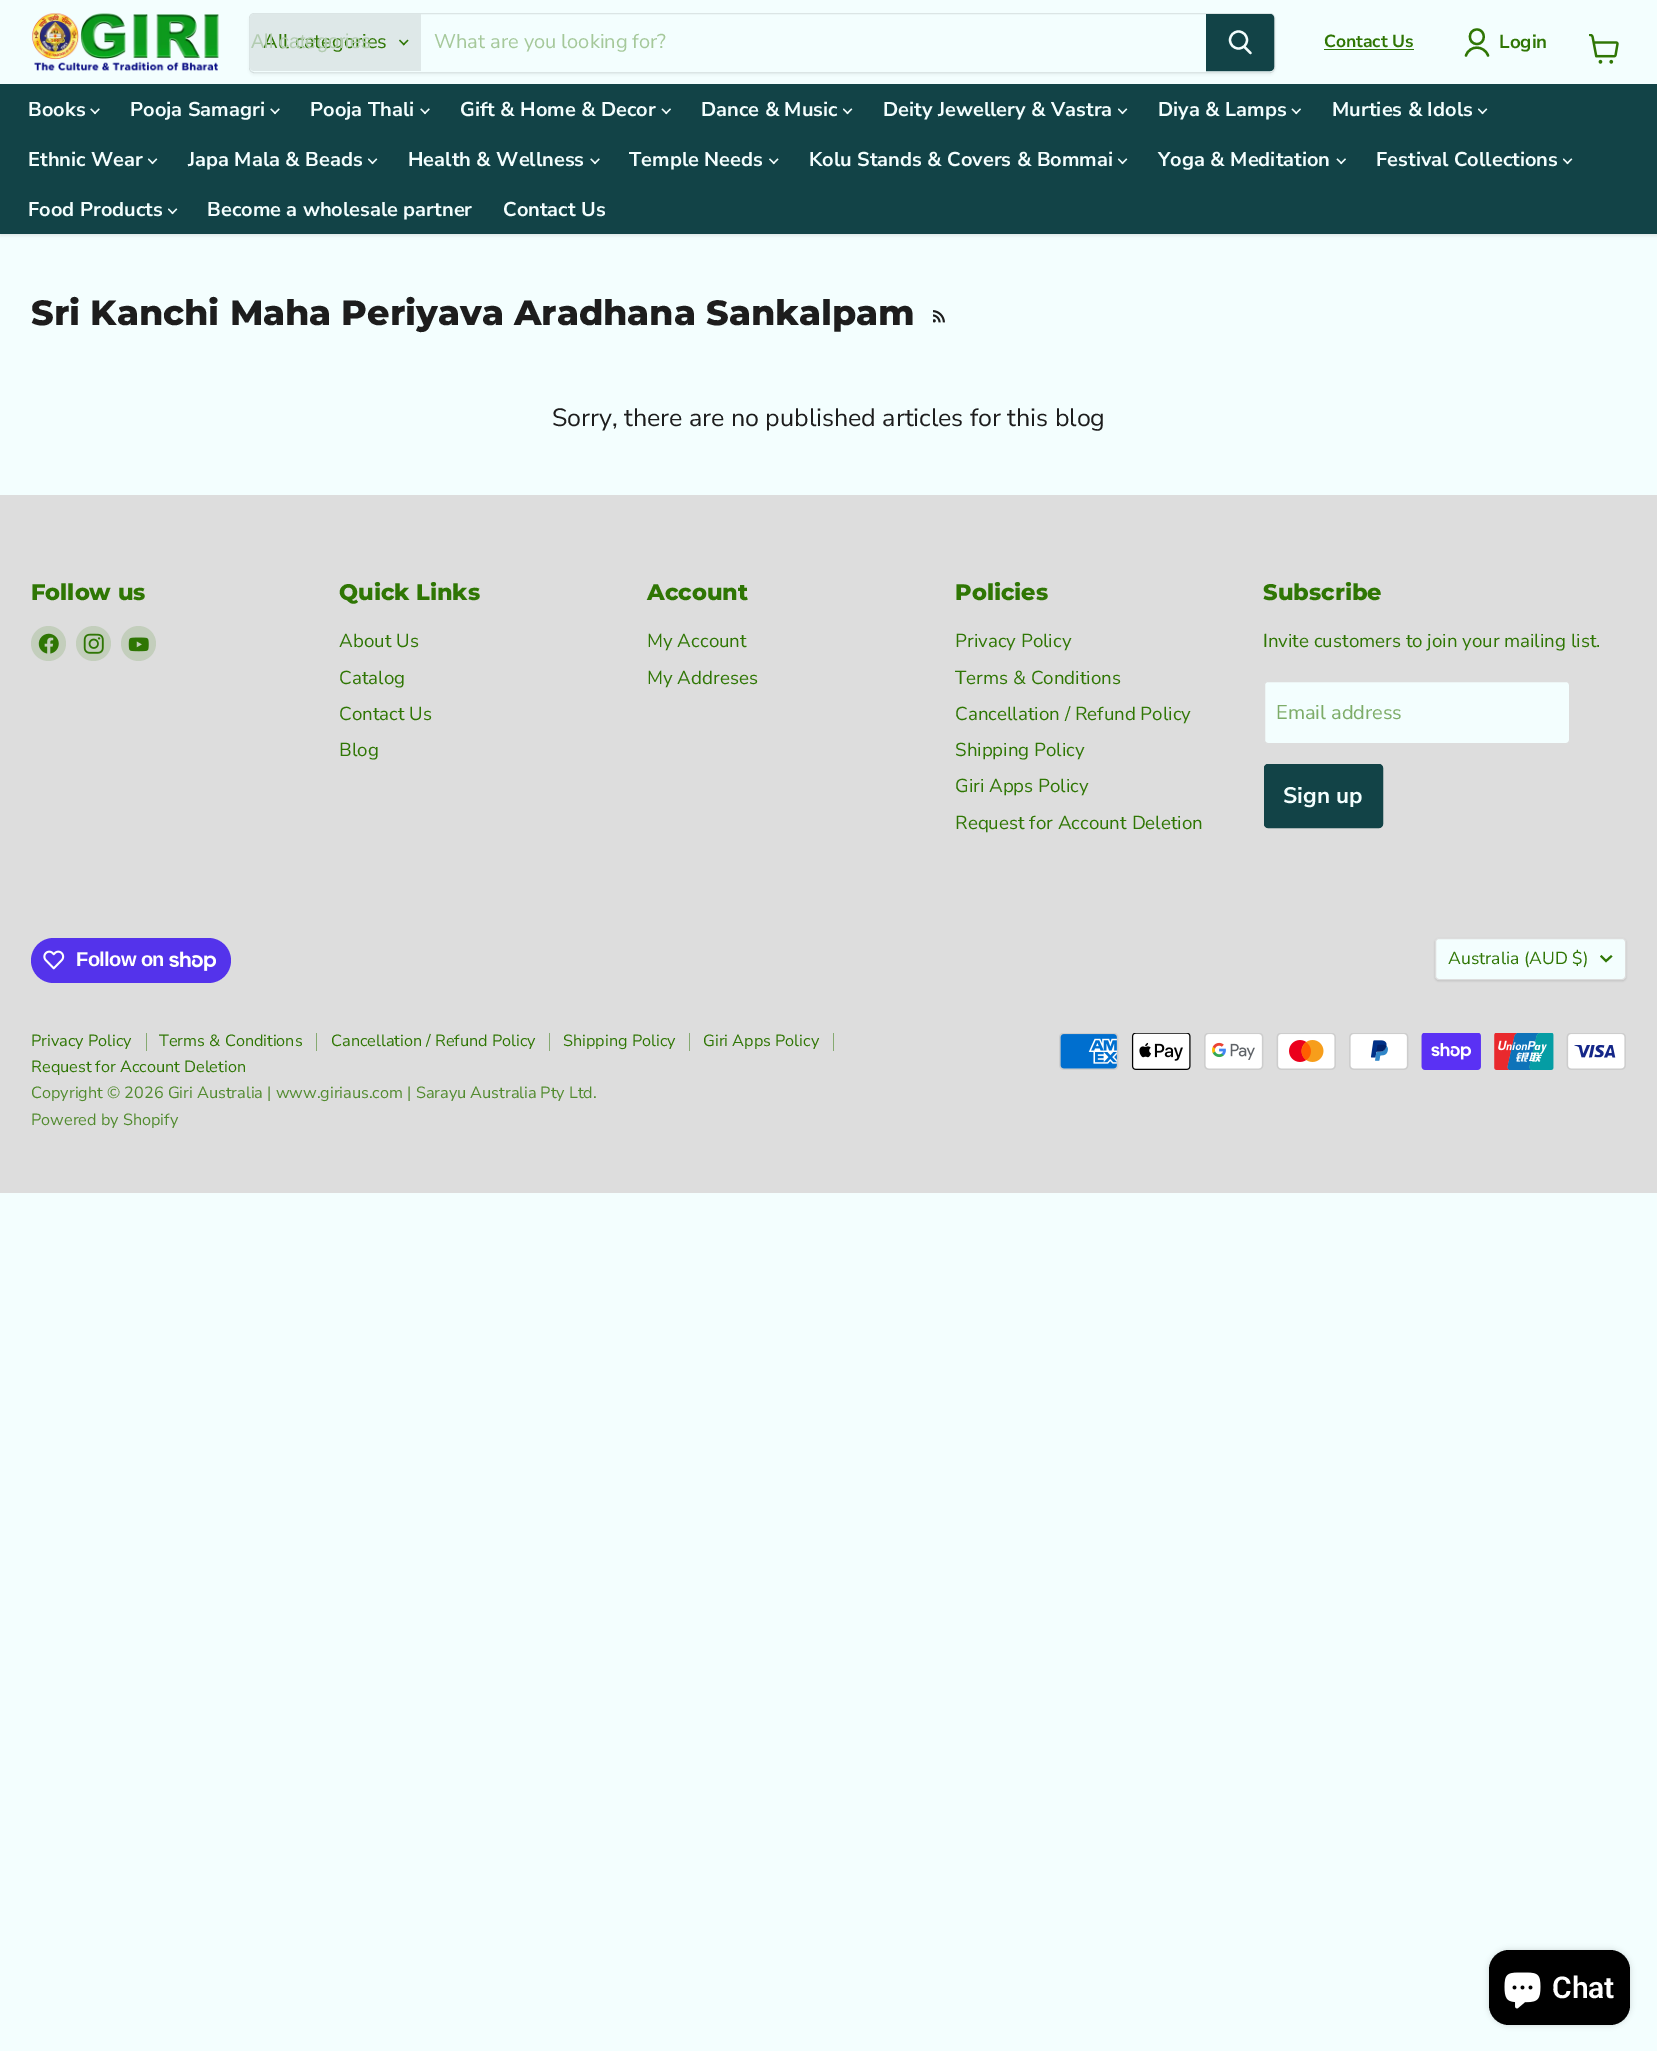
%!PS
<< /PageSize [1657 2051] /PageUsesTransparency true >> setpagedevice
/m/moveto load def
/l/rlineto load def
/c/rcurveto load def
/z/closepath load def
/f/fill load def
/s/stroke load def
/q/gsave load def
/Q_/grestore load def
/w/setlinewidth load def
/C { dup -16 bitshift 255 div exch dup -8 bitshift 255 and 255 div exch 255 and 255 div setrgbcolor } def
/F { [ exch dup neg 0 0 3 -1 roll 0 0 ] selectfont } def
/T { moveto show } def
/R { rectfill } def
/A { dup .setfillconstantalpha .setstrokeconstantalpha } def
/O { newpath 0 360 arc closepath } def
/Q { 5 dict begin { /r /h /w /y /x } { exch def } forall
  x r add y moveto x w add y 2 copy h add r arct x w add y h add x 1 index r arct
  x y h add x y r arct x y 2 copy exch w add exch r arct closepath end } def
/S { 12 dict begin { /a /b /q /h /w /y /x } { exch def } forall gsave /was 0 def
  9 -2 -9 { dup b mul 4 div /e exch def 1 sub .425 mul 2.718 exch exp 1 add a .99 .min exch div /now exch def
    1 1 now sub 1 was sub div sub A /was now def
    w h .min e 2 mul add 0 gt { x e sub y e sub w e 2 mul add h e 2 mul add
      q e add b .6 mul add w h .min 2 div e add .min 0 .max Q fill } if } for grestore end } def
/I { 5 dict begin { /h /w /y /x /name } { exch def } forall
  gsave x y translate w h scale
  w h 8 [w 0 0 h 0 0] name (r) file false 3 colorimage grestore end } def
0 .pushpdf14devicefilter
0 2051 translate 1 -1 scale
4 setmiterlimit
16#F3FEFE C
0 0 1657 2051 R
16#7A7F7F C
0 1 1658 234 0 2.5 .25 S
16#F3FEFE C
0 0 1657 84 R
(1.rgb) 32 13 187 58 I
q
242 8 m 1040 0 l 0 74 l -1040 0 l z 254 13 m 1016 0 l 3 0 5 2 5 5 c 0 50 l 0 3 -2 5 -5 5 c -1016 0 l -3 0 -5 -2 -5 -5 c 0 -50 l 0 -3 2 -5 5 -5 c z eoclip newpath
16#7A7F7F C
249 15 1026 60 5 2 .11 S
Q_
0.2 A
16#7A7F7F C
249.5 13.5 1025 59 4.5 Q s
1 A
16#DEE8E8 C
254 14 m 167 0 l 0 57 l -167 0 l -2 0 -4 -2 -4 -4 c 0 -49 l 0 -2 2 -4 4 -4 c z f
/NunitoSans-Regular 20 F
16#2F7604 C
(All categories) 263 48 T
/LiberationSans-Regular 20 F
16#B3CCB1 C
(All categories) 251 48 T
(2.rgb) 399 39 10 7 I
/NunitoSans-Regular 20 F
16#A5C89A C
(What are you looking for?) 434 48 T
16#124347 C
1206.5 14.5 m 63.5 0 l 2 0 3.5 1.5 3.5 3.5 c 0 49 l 0 2 -1.5 3.5 -3.5 3.5 c -63.5 0 l z q f Q_
s
16#F3FEFE C
2.2 w
1 setlinecap
1250.5 53 m -6 -6 l s
0 setlinecap
1238.5 40 8.5 O s
/NunitoSans-Bold 17.5 F
16#2F7604 C
(Contact Us) 1324 47 T
1324 49 90 1 R
2.3 w
1 setlinecap
1 setlinejoin
1477 44 m 9 0 9 -14.5 0 -14.5 c -9.5 0 -9.5 14.5 0 14.5 c z 1488 55.5 m -4 -10.5 -18.5 -10.5 -22 0 c s
/NunitoSans-Bold 18.75 F
(Login) 1499 48 T
(3.rgb) 1589 34 30 30 I
16#124347 C
0 84 1657 150 R
/NunitoSans-Bold 20 F
16#F3FEFE C
(Books) 28 116 T
(4.rgb) 90 108 10 7 I
(Pooja Samagri) 130 116 T
(4.rgb) 270 108 10 7 I
(Pooja Thali) 310 116 T
(4.rgb) 420 108 10 7 I
(Gift & Home & Decor) 460 116 T
(5.rgb) 661 108 10 7 I
(Dance & Music) 701 116 T
(6.rgb) 843 108 10 7 I
(Deity Jewellery & Vastra) 883 116 T
(6.rgb) 1118 108 10 7 I
(Diya & Lamps) 1158 116 T
(5.rgb) 1291 108 10 7 I
(Murties & Idols) 1332 116 T
(6.rgb) 1478 108 10 7 I
(Ethnic Wear) 28 166 T
(6.rgb) 148 158 10 7 I
(Japa Mala & Beads) 188 166 T
(6.rgb) 368 158 10 7 I
(Health & Wellness) 408 166 T
(4.rgb) 590 158 10 7 I
(Temple Needs) 629 166 T
(7.rgb) 769 158 10 7 I
(Kolu Stands & Covers & Bommai) 809 166 T
(6.rgb) 1118 158 10 7 I
(Yoga & Meditation) 1158 166 T
(5.rgb) 1336 158 10 7 I
(Festival Collections) 1376 166 T
(6.rgb) 1563 158 10 7 I
(Food Products) 28 216 T
(6.rgb) 168 208 10 7 I
(Become a wholesale partner) 207 216 T
(Contact Us) 503 216 T
/Montserrat-ExtraBold 35 F
16#1D1D1D C
(Sri Kanchi Maha Periyava Aradhana Sankalpam) 31 325 T
(8.rgb) 933 310 12 13 I
/NunitoSans-Regular 25 F
(Sorry, there are no published articles for this blog) 552 426 T
16#DDDDDD C
0 495 1657 698 R
/Montserrat-ExtraBold 22.5 F
16#2F7604 C
(Follow us) 31 600 T
16#C3CEBC C
48.5 643.5 17.5 O f
(9.rgb) 38 633 21 21 I
93.5 643.5 17.5 O f
(10.rgb) 83 633 21 21 I
138.5 643.5 17.5 O f
(11.rgb) 128 637 21 15 I
16#2F7604 C
(Quick Links) 339 600 T
/NunitoSans-Regular 18.75 F
(About Us) 339 647 T
(Catalog) 339 684 T
(Contact Us) 339 720 T
(Blog) 339 756 T
/Montserrat-ExtraBold 22.5 F
(Account) 647 600 T
/NunitoSans-Regular 18.75 F
(My Account) 647 647 T
(My Addreses) 647 684 T
/Montserrat-ExtraBold 22.5 F
(Policies) 955 600 T
/NunitoSans-Regular 18.75 F
(Privacy Policy) 955 647 T
(Terms & Conditions) 955 684 T
(Cancellation / Refund Policy) 955 720 T
(Shipping Policy) 955 756 T
(Giri Apps Policy) 955 792 T
(Request for Account Deletion) 955 829 T
/Montserrat-ExtraBold 22.5 F
(Subscribe) 1263 600 T
/NunitoSans-Regular 18.75 F
(Invite customers to join your mailing list.) 1263 647 T
16#F3FEFE C
1264.5 681.5 305 62 3.5 Q q f Q_
16#DDDDDD C
1 w
0 setlinecap
0 setlinejoin
s
/NunitoSans-Regular 20 F
16#7DAC68 C
(Email address) 1276 719 T
16#124347 C
1264.5 764.5 118 63 3.5 Q q f Q_
s
/NunitoSans-Bold 22.5 F
16#F3FEFE C
(Sign up) 1283 803 T
16#5433EB C
31 938 200 45 22.5 Q f
(12.rgb) 43 950 22 20 I
/LiberationSans-Bold 20 F
16#FFFFFF C
76 966 m -.6 0 (Follow on) ashow
(13.rgb) 169 951 47 20 I
16#000000 C
1435 939 191 42 4 1 .15 S
16#F3FEFE C
1435.5 938.5 190 41 3.5 Q q f Q_
16#DDDDDD C
s
/NunitoSans-Regular 17.5 F
16#2F7604 C
(Australia \(AUD $\)) 1448 964 T
2 w
2 setlinecap
1606 961 m 5 -4.5 l 1606 961 m -4.5 -4.5 l s
16#86AA71 C
146 1033 1 18 R
/NunitoSans-Regular 16.25 F
16#2F7604 C
(Privacy Policy) 31 1046 T
16#86AA71 C
316 1033 1 18 R
16#2F7604 C
(Terms & Conditions) 159 1046 T
16#86AA71 C
549 1033 1 18 R
16#2F7604 C
(Cancellation / Refund Policy) 331 1046 T
16#86AA71 C
689 1033 1 18 R
16#2F7604 C
(Shipping Policy) 563 1046 T
16#86AA71 C
833 1033 1 18 R
16#2F7604 C
(Giri Apps Policy) 703 1046 T
(Request for Account Deletion) 31 1072 T
16#528B2F C
(Copyright © 2026 Giri Australia | www.giriaus.com | Sarayu Australia Pty Ltd.) 31 1098 T
(Powered by Shopify) 31 1125 T
(14.rgb) 1059 1033 60 37 I
(15.rgb) 1131 1033 60 37 I
(16.rgb) 1204 1033 60 37 I
(17.rgb) 1276 1033 60 37 I
(18.rgb) 1349 1033 60 37 I
(19.rgb) 1421 1033 60 37 I
(20.rgb) 1494 1033 60 37 I
(21.rgb) 1566 1033 60 37 I
16#000000 C
1489 1950 141 75 20 3 .15 S
1489 1950 141 75 20 Q f
(22.rgb) 1504 1972 37 37 I
/Roboto-SemiBold 30 F
16#FFFFFF C
(Chat) 1552 1998 T
.poppdf14devicefilter showpage
